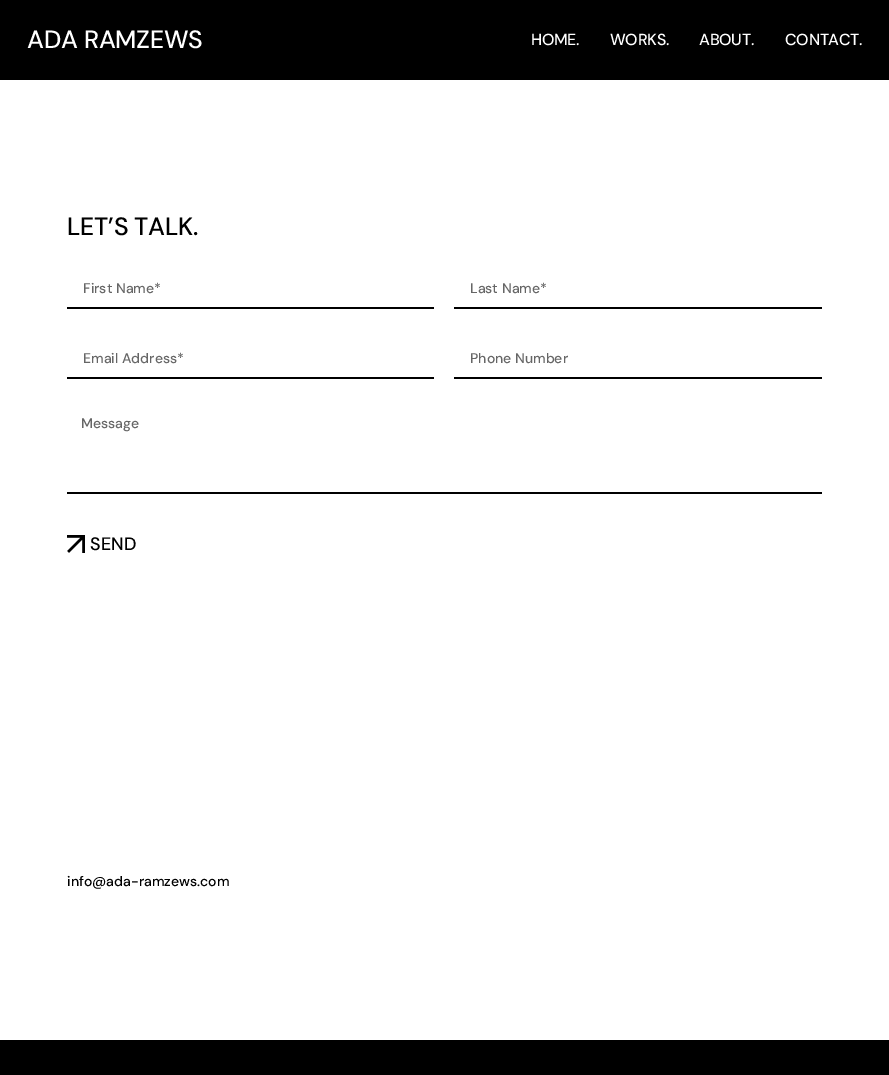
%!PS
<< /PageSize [889 1075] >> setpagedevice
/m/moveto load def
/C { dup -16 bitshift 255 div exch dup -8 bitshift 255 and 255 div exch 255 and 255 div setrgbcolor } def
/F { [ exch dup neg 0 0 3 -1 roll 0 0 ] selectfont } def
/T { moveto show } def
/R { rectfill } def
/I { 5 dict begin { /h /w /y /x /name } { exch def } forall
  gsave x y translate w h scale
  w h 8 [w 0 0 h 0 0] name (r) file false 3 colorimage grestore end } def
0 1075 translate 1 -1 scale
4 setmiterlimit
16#000000 C
0 0 889 1075 R
/DMSans-Medium 25 F
16#FFFFFF C
27 48 m -.25 0 (ADA RAMZEWS) ashow
/DMSans-Medium 16 F
531 45 m -.25 0 (HOME.) ashow
610 45 m -.25 0 (WORKS.) ashow
699 45 m -.25 0 (ABOUT.) ashow
785 45 m -.25 0 (CONTACT.) ashow
0 80 889 960 R
/DMSans-Medium 25 F
16#000000 C
67 235 m -.25 0 (LET’S TALK.) ashow
67 307 367 2 R
/DMSans-Medium 14 F
16#666666 C
(First Name*) 83 293 T
16#000000 C
454 307 368 2 R
16#666666 C
(Last Name*) 470 293 T
16#000000 C
67 377 367 2 R
16#666666 C
(Email Address*) 83 363 T
16#000000 C
454 377 368 2 R
16#666666 C
(Phone Number) 470 363 T
16#000000 C
67 492 755 2 R
16#666666 C
(Message) 81 428 T
(1.rgb) 67 535 18 18 I
/DMSans-Medium 18 F
16#000000 C
(SEND) 90 550 T
/DMSans-Medium 14 F
(info@ada-ramzews.com) 67 886 T
showpage
